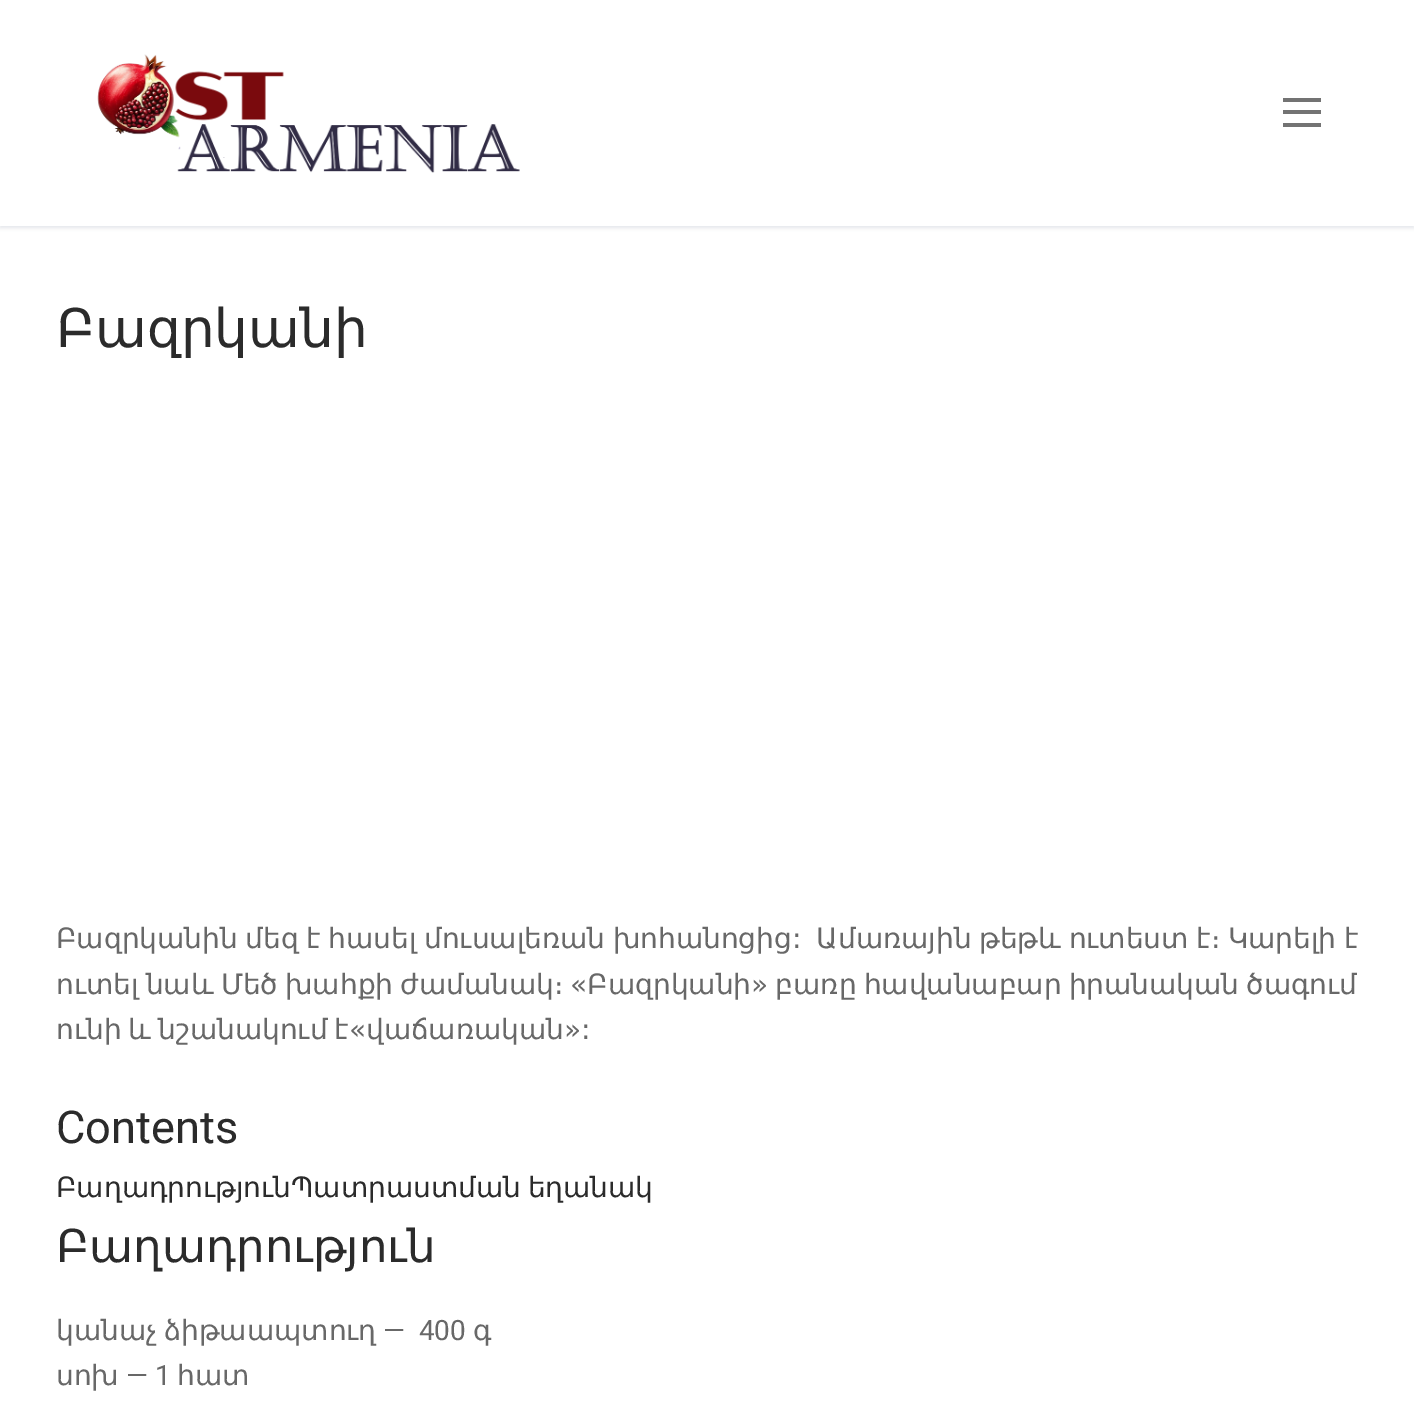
%!PS
<< /PageSize [1414 1414] /PageUsesTransparency true >> setpagedevice
/m/moveto load def
/C { dup -16 bitshift 255 div exch dup -8 bitshift 255 and 255 div exch 255 and 255 div setrgbcolor } def
/F { [ exch dup neg 0 0 3 -1 roll 0 0 ] selectfont } def
/T { moveto show } def
/R { rectfill } def
/A { dup .setfillconstantalpha .setstrokeconstantalpha } def
/Q { 5 dict begin { /r /h /w /y /x } { exch def } forall
  x r add y moveto x w add y 2 copy h add r arct x w add y h add x 1 index r arct
  x y h add x y r arct x y 2 copy exch w add exch r arct closepath end } def
/S { 12 dict begin { /a /b /q /h /w /y /x } { exch def } forall gsave /was 0 def
  9 -2 -9 { dup b mul 4 div /e exch def 1 sub .425 mul 2.718 exch exp 1 add a .99 .min exch div /now exch def
    1 1 now sub 1 was sub div sub A /was now def
    w h .min e 2 mul add 0 gt { x e sub y e sub w e 2 mul add h e 2 mul add
      q e add b .6 mul add w h .min 2 div e add .min 0 .max Q fill } if } for grestore end } def
/I { 5 dict begin { /h /w /y /x /name } { exch def } forall
  gsave x y translate w h scale
  w h 8 [w 0 0 h 0 0] name (r) file false 3 colorimage grestore end } def
0 .pushpdf14devicefilter
0 1414 translate 1 -1 scale
4 setmiterlimit
16#FFFFFF C
0 0 1414 1414 R
16#E1E5EA C
0 2 1414 226 0 2 1 S
16#FFFFFF C
0 0 1414 226 R
(1.rgb) 97 54 423 119 I
16#737373 C
1283 110 38 4 R
1283 98 38 4 R
1283 123 38 4 R
/DejaVuSans-Regular 53.25 F
16#2B2B2B C
(Բազրկանի) 56 347 T
/DejaVuSans-Regular 28 F
16#686868 C
56 948 m -1.25 0 32 (Բազրկանին մեզ է հասել մուսալեռան խոհանոցից:  Ամառային թեթև ուտեստ է։ Կարելի է) widthshow
56 994 m -1.75 0 32 (ուտել նաև Մեծ խահքի ժամանակ։ «Բազրկանի» բառը հավանաբար իրանական ծագում) widthshow
56 1039 m -2 0 32 (ունի և նշանակում է«վաճառական»:) widthshow
/Roboto-Regular 45.25 F
16#2B2B2B C
(Contents) 56 1143 T
/DejaVuSans-Regular 28 F
(Բաղադրություն) 56 1197 T
291 1197 m -2 0 32 (Պատրաստման եղանակ) widthshow
/DejaVuSans-Regular 45.25 F
(Բաղադրություն) 56 1262 T
/DejaVuSans-Regular 28 F
16#686868 C
(կանաչ) 56 1340 T
(ձիթաապտուղ) 164 1340 T
/Roboto-Regular 28 F
(—  400) 383 1340 T
/DejaVuSans-Regular 28 F
(գ) 473 1340 T
(սոխ) 56 1385 T
/Roboto-Regular 28 F
(— 1) 126 1385 T
/DejaVuSans-Regular 28 F
(հատ) 177 1385 T
.poppdf14devicefilter showpage
